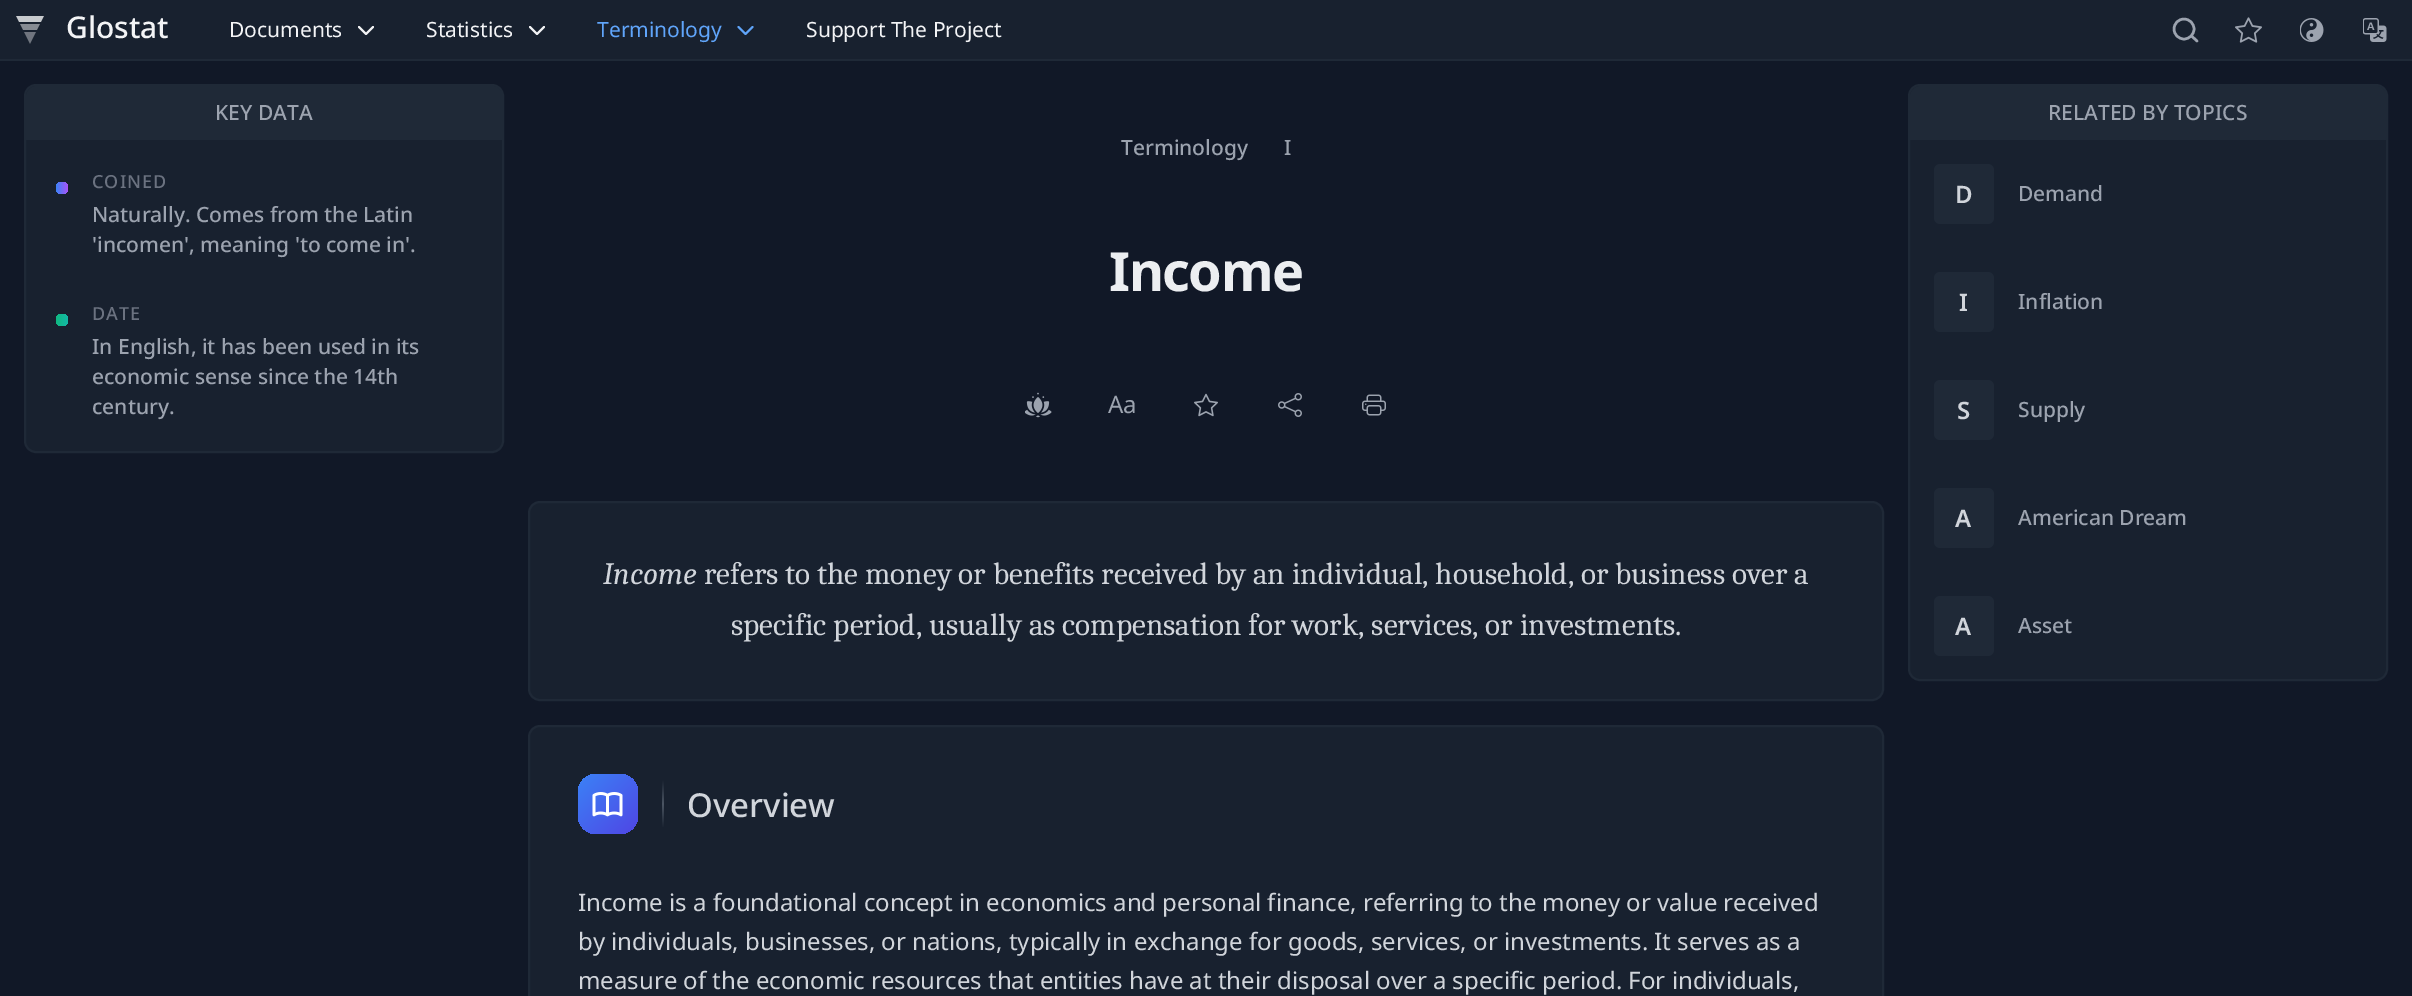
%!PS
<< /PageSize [2412 996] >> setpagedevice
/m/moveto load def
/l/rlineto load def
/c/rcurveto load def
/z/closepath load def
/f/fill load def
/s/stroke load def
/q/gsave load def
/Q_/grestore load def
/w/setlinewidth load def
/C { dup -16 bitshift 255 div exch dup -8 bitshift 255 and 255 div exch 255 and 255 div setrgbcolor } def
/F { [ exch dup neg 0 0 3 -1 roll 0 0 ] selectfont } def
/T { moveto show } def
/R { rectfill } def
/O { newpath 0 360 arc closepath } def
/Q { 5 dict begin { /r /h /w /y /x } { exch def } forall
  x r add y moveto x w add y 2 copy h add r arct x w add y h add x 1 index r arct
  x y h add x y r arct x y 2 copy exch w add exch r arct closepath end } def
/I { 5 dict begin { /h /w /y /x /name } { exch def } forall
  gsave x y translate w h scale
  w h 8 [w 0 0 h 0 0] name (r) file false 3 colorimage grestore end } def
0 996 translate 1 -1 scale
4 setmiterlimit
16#111827 C
0 0 2412 996 R
16#18212F C
0 0 2412 59 R
16#1F2937 C
0 59 2412 2 R
(1.rgb) 16 16 28 28 I
/NotoSans-Medium 30 F
16#F3F4F6 C
(Glostat) 66 38 T
/NotoSans-Regular 21 F
(Documents) 229 37 T
2 w
1 setlinecap
1 setlinejoin
373 27 m -7 7 l -7 -7 l s
(Statistics) 426 37 T
544 27 m -7 7 l -7 -7 l s
16#60A5FA C
(Terminology) 597 37 T
752.5 27 m -7 7 l -7 -7 l s
16#F3F4F6 C
(Support The Project) 806 37 T
16#9CA3AF C
2.5 w
0 setlinecap
0 setlinejoin
2184 29 10 O s
1 setlinecap
1 setlinejoin
2197 41 m -5.5 -5 l s
(2.rgb) 2235 17 27 26 I
(3.rgb) 2300 18 24 24 I
(4.rgb) 2363 18 24 24 I
16#18212F C
25 85 478 367 11 Q q f Q_
16#1F2937 C
2 w
0 setlinecap
0 setlinejoin
s
37 86 m 455 0 l 6 0 11 5 11 11 c 0 43 l -477 0 l 0 -43 l 0 -6 5 -11 11 -11 c z f
/NotoSans-Medium 21 F
16#9CA3AF C
(KEY DATA) 215 120 T
q 62 188 6 O clip newpath
<< /ShadingType 2 /ColorSpace /DeviceRGB /Coords [56 188 68 188] /Extend [true true] /Function << /FunctionType 2 /Domain [0 1] /C0 [.231 .51 .965] /C1 [.659 .333 .969] /N 1 >> >> shfill Q_
/NotoSans-Medium 18 F
16#6B7280 C
92 188 m 1 0 (COINED) ashow
/NotoSans-Medium 21 F
16#9CA3AF C
(Naturally. Comes from the Latin) 92 222 T
('incomen', meaning 'to come in'.) 92 252 T
q 62 320 6 O clip newpath
<< /ShadingType 2 /ColorSpace /DeviceRGB /Coords [56 320 68 320] /Extend [true true] /Function << /FunctionType 2 /Domain [0 1] /C0 [.063 .725 .506] /C1 [.078 .722 .651] /N 1 >> >> shfill Q_
/NotoSans-Medium 18 F
16#6B7280 C
92 320 m 1 0 (DATE) ashow
/NotoSans-Medium 21 F
16#9CA3AF C
(In English, it has been used in its) 92 354 T
(economic sense since the 14th) 92 384 T
(century.) 92 414 T
(Terminology) 1121 155 T
(I) 1284 155 T
/NotoSans-Bold 54 F
16#ECEEF1 C
1109 291 m -1.5 0 (Income) ashow
(5.rgb) 1025 392 27 26 I
/NotoSans-Regular 24 F
16#9CA3AF C
(Aa) 1108 413 T
(6.rgb) 1194 393 24 24 I
(7.rgb) 1278 393 24 24 I
(8.rgb) 1362 394 24 22 I
16#18212F C
529 502 1354 198 11 Q q f Q_
16#1F2937 C
s
/Caladea-Italic 31.2 F
16#D1D5DB C
(Income) 603 584 T
/Caladea-Regular 31.2 F
(refers to the money or benefits received by an individual, household, or business over a) 704 584 T
(specific period, usually as compensation for work, services, or investments.) 731 635 T
16#18212F C
529 726 1354 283 11 Q q f Q_
16#1F2937 C
s
q 578 774 60 60 18 Q clip newpath
<< /ShadingType 2 /ColorSpace /DeviceRGB /Coords [578 774 638 834] /Extend [true true] /Function << /FunctionType 2 /Domain [0 1] /C0 [.231 .51 .965] /C1 [.31 .275 .898] /N 1 >> >> shfill Q_
(9.rgb) 592 792 31 25 I
q 662 780 m 2 0 l 0 48 l -2 0 l z clip newpath
<< /ShadingType 2 /ColorSpace /DeviceRGB /Coords [662 780 662 828] /Extend [true true] /Function << /FunctionType 3 /Domain [0 1] /Functions [<< /FunctionType 2 /Domain [0 1] /C0 [.094 .129 .184] /C1 [.294 .333 .388] /N 1 >> << /FunctionType 2 /Domain [0 1] /C0 [.294 .333 .388] /C1 [.094 .129 .184] /N 1 >>] /Bounds [.5] /Encode [0 1 0 1] >> >> shfill Q_
/NotoSans-Medium 33 F
16#D1D5DB C
(Overview) 687 817 T
/NotoSans-Regular 24 F
(Income is a foundational concept in economics and personal finance, referring to the money or value received) 578 911 T
(by individuals, businesses, or nations, typically in exchange for goods, services, or investments. It serves as a) 578 950 T
(measure of the economic resources that entities have at their disposal over a specific period. For individuals,) 578 989 T
16#18212F C
1909 85 478 595 11 Q q f Q_
16#1F2937 C
s
1921 86 m 455 0 l 6 0 11 5 11 11 c 0 43 l -477 0 l 0 -43 l 0 -6 5 -11 11 -11 c z f
/NotoSans-Medium 21 F
16#9CA3AF C
(RELATED BY TOPICS) 2048 120 T
16#1F2937 C
1934 164 60 60 6 Q f
/NotoSans-SemiBold 24 F
16#D1D5DB C
(D) 1955 203 T
/NotoSans-Medium 21 F
16#9CA3AF C
(Demand) 2018 201 T
16#1F2937 C
1934 272 60 60 6 Q f
/NotoSans-SemiBold 24 F
16#D1D5DB C
(I) 1959 311 T
/NotoSans-Medium 21 F
16#9CA3AF C
(Inflation) 2018 309 T
16#1F2937 C
1934 380 60 60 6 Q f
/NotoSans-SemiBold 24 F
16#D1D5DB C
(S) 1957 419 T
/NotoSans-Medium 21 F
16#9CA3AF C
(Supply) 2018 417 T
16#1F2937 C
1934 488 60 60 6 Q f
/NotoSans-SemiBold 24 F
16#D1D5DB C
(A) 1955 527 T
/NotoSans-Medium 21 F
16#9CA3AF C
(American Dream) 2018 525 T
16#1F2937 C
1934 596 60 60 6 Q f
/NotoSans-SemiBold 24 F
16#D1D5DB C
(A) 1955 635 T
/NotoSans-Medium 21 F
16#9CA3AF C
(Asset) 2018 633 T
showpage
